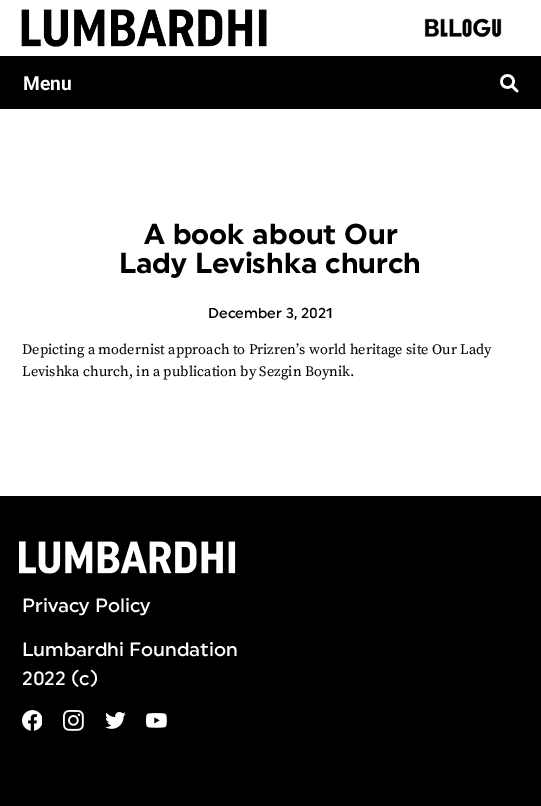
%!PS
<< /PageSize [541 806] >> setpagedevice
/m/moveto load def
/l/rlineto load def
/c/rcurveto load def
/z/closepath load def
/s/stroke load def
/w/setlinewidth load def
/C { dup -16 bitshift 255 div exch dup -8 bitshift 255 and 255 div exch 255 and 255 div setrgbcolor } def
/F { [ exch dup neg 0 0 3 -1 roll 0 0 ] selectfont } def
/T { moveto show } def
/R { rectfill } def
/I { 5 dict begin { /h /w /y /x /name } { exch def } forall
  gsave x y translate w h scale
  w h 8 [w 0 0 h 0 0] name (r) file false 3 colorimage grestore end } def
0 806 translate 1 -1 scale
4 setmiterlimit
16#FFFFFF C
0 0 541 806 R
16#000000 C
0 56 541 53 R
(1.rgb) 21 9 246 38 I
(2.rgb) 424 18 78 20 I
/Roboto-Bold 19.25 F
16#FFFFFF C
(Menu) 23 90 T
2.6 w
1 setlinecap
1 setlinejoin
517 91 m -5 -5 l 513.5 81.5 m 0 8 -12 8 -12 0 c 0 -8 12 -8 12 0 c z s
/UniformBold-Bold 28.75 F
16#000000 C
(A book about Our) 144 244 T
(Lady Levishka church) 119 273 T
/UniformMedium-Medium 14.4 F
(December 3, 2021) 208 318 T
/SourceSerifPro-Regular 14.4 F
(Depicting a modernist approach to Prizren’s world heritage site Our Lady) 22 354 T
(Levishka church, in a publication by Sezgin Boynik.) 22 376 T
0 496 541 310 R
(3.rgb) 19 541 217 33 I
/UniformMedium-Medium 19.25 F
16#FFFFFF C
(Privacy Policy) 22 612 T
(Lumbardhi Foundation) 22 656 T
(2022 \(c\)) 22 685 T
(4.rgb) 22 710 20 21 I
(5.rgb) 63 710 21 21 I
(6.rgb) 105 712 21 17 I
(7.rgb) 146 713 21 15 I
showpage
